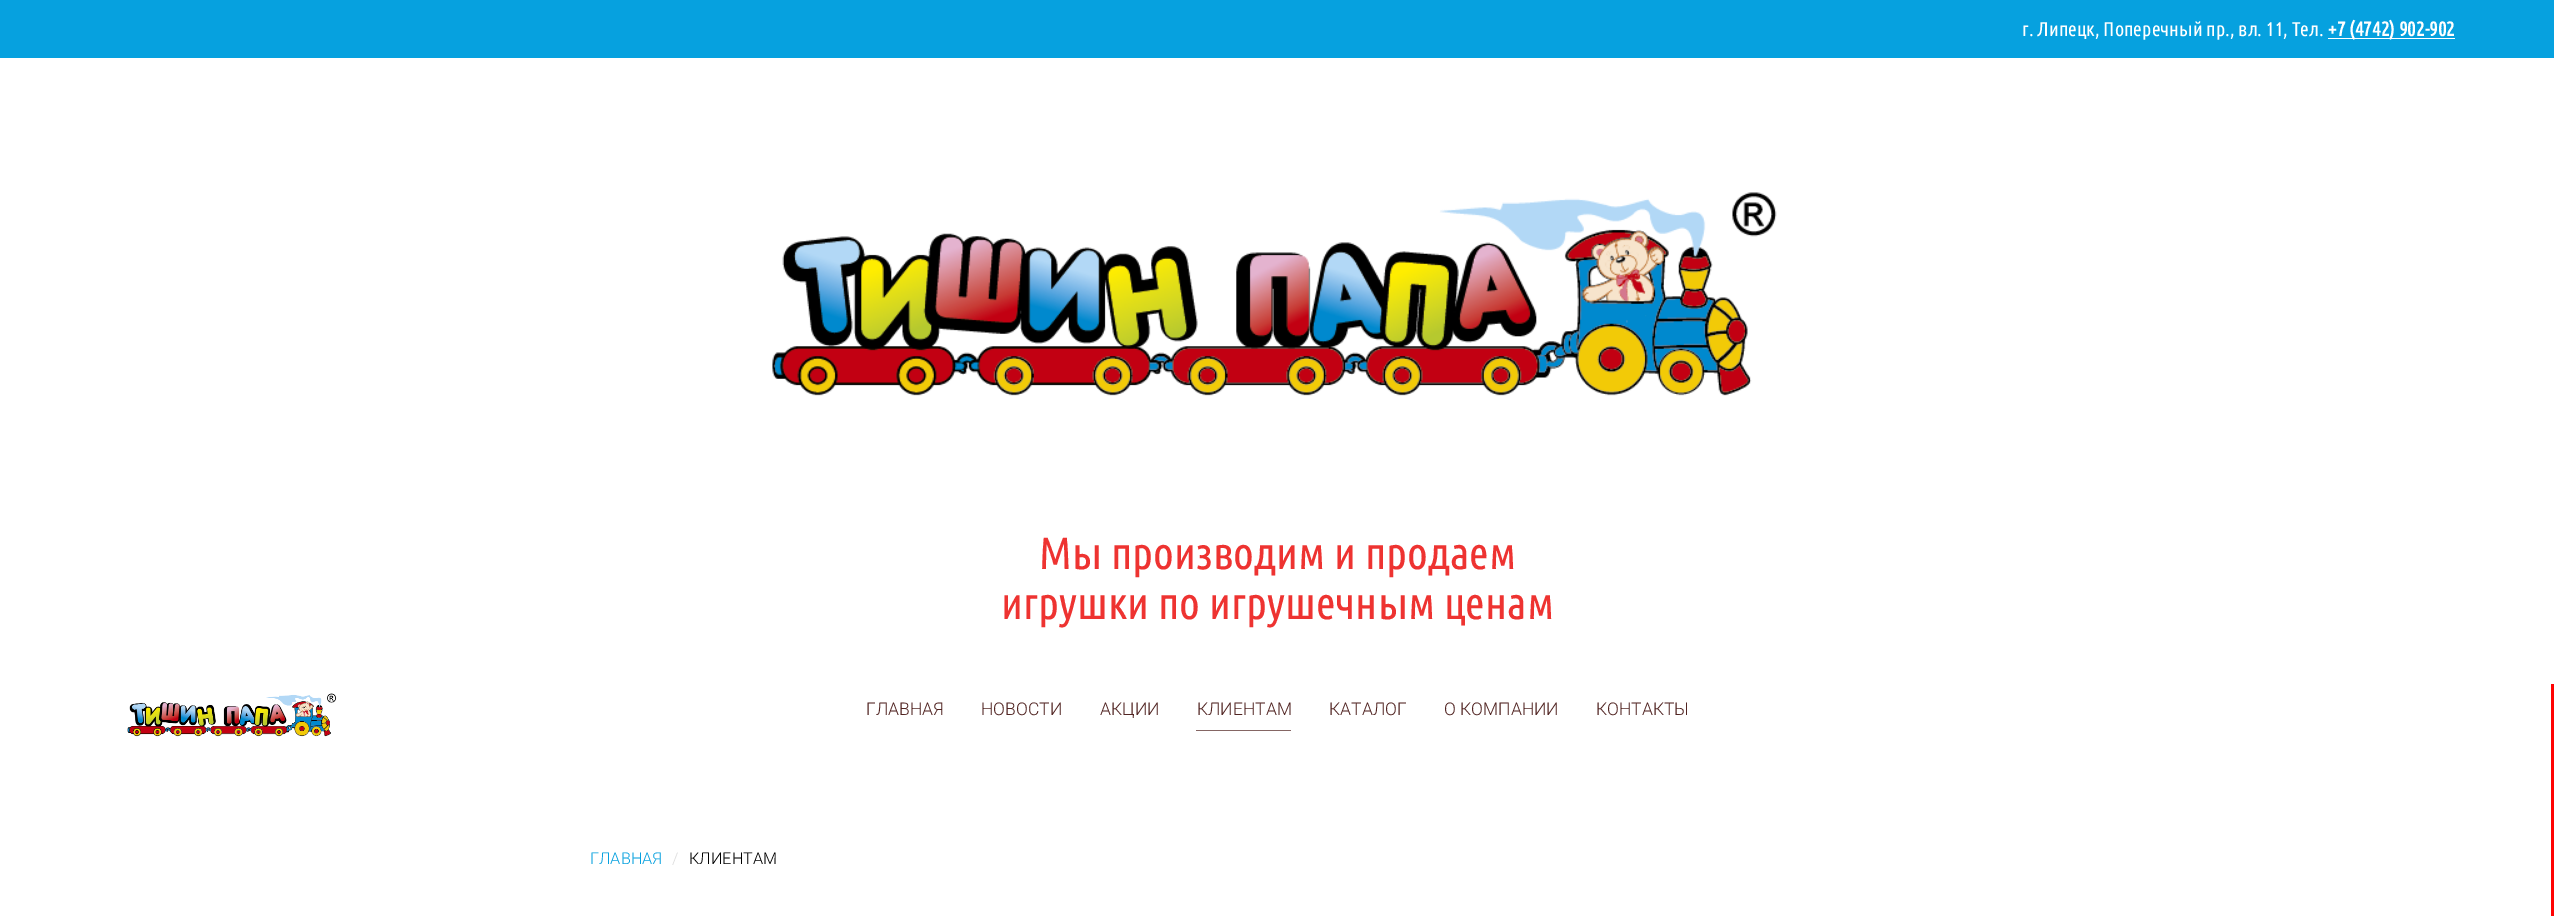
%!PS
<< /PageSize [2554 916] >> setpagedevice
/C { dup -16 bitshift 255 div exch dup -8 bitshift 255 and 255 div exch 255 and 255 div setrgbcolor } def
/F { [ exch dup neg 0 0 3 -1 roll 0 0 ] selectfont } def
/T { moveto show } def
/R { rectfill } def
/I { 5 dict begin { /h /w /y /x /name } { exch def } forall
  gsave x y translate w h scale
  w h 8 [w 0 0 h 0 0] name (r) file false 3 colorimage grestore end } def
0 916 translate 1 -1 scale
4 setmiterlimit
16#FFFFFF C
0 0 2554 916 R
16#06A1DF C
0 0 2554 58 R
/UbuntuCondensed-Regular 20 F
16#FFFFFF C
(г. Липецк, Поперечный пр., вл. 11, Тел.) 2022 36 T
2328 38 127 1 R
/UbuntuCondensed-Bold 20 F
(+7 \(4742\) 902-902) 2328 36 T
(1.rgb) 772 192 1005 204 I
/UbuntuCondensed-Regular 45 F
16#EE3331 C
(Мы производим и продаем) 1039 569 T
(игрушки по игрушечным ценам) 1001 619 T
(2.rgb) 127 693 210 44 I
/Roboto-Light 17.5 F
16#512422 C
(ГЛАВНАЯ) 866 715 T
(НОВОСТИ) 981 715 T
(АКЦИИ) 1100 715 T
(КЛИЕНТАМ) 1197 715 T
16#856664 C
1196 730 95 1 R
16#512422 C
(КАТАЛОГ) 1329 715 T
(О КОМПАНИИ) 1444 715 T
(КОНТАКТЫ) 1596 715 T
16#FF0303 C
2551 684 3 232 R
/Roboto-Light 16.25 F
16#06A1DF C
(ГЛАВНАЯ) 590 864 T
16#DDDDDD C
(/) 672 864 T
16#000000 C
(КЛИЕНТАМ) 689 864 T
showpage
